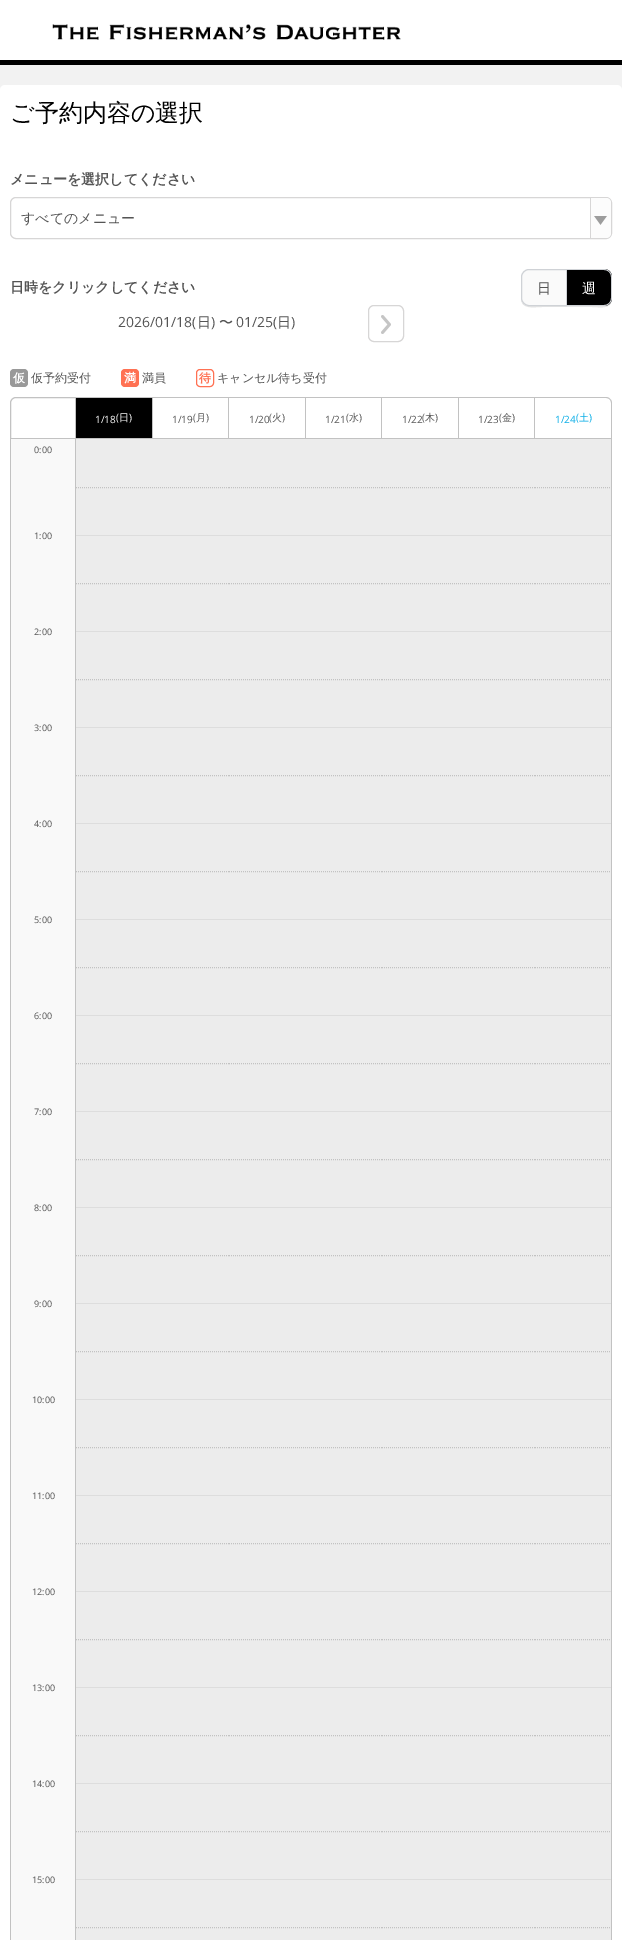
%!PS
<< /PageSize [622 1940] >> setpagedevice
/m/moveto load def
/l/rlineto load def
/c/rcurveto load def
/z/closepath load def
/f/fill load def
/s/stroke load def
/q/gsave load def
/Q_/grestore load def
/C { dup -16 bitshift 255 div exch dup -8 bitshift 255 and 255 div exch 255 and 255 div setrgbcolor } def
/F { [ exch dup neg 0 0 3 -1 roll 0 0 ] selectfont } def
/T { moveto show } def
/R { rectfill } def
/Q { 5 dict begin { /r /h /w /y /x } { exch def } forall
  x r add y moveto x w add y 2 copy h add r arct x w add y h add x 1 index r arct
  x y h add x y r arct x y 2 copy exch w add exch r arct closepath end } def
/I { 5 dict begin { /h /w /y /x /name } { exch def } forall
  gsave x y translate w h scale
  w h 8 [w 0 0 h 0 0] name (r) file false 3 colorimage grestore end } def
0 1940 translate 1 -1 scale
4 setmiterlimit
16#FFFFFF C
0 0 622 1940 R
16#000000 C
0 60 622 5 R
(1.rgb) 52 24 349 16 I
16#F2F2F2 C
0 65 622 25 R
16#FFFFFF C
0 85 622 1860 5 Q f
/WenQuanYiZenHei-Medium 24 F
16#000000 C
(ご予約内容の選択) 10 121 T
/WenQuanYiZenHei-Bold 14 F
16#555555 C
(メニューを選択してください) 10 184 T
16#D7D6D6 C
10.5 197.5 601 41 5.5 Q s
/WenQuanYiZenHei-Medium 14 F
16#555555 C
(すべてのメニュー) 21 223 T
16#FCFCFC C
590 198 m 16 0 l 3 0 5 2 5 5 c 0 30 l 0 3 -2 5 -5 5 c -16 0 l z f
16#D7D6D6 C
590 198 1 40 R
(2.rgb) 594 216 13 9 I
/WenQuanYiZenHei-Bold 14 F
16#555555 C
(日時をクリックしてください) 10 292 T
16#E6E6E6 C
521 298 m 0 12 13 9 21 9 c 25 0 l 0 -1 l -38 0 l -4 0 -8 -4 -8 -8 c z f
16#FAFAFA C
529 269.5 m 37.5 0 l 0 36 l -37.5 0 l -4 0 -7.5 -3.5 -7.5 -7.5 c 0 -21 l 0 -4 3.5 -7.5 7.5 -7.5 c z q f Q_
16#CFD2D6 C
s
/WenQuanYiZenHei-Medium 14 F
16#555555 C
(日) 537 293 T
16#E6E6E6 C
567 306 m 0 1 l 25 0 l 8 0 20 3 20 -9 c 0 4 -4 8 -8 8 c z f
16#000000 C
567 269 m 37 0 l 4.5 0 8 3.5 8 8 c 0 21 l 0 4.5 -3.5 8 -8 8 c -37 0 l z f
16#CFD2D6 C
567 269 m 37 0 l 4 0 8 4 8 8 c 0 21 l 0 4 -4 8 -8 8 c -37 0 l z 567 270 m 37 0 l 4 0 7 3 7 7 c 0 21 l 0 4 -3 7 -7 7 c -37 0 l z eofill
16#FFFFFF C
(週) 582 293 T
/OpenSans-Regular 14 F
16#555555 C
(2026/01/18\() 118 327 T
/WenQuanYiZenHei-Medium 14 F
(日) 197 327 T
/OpenSans-Regular 14 F
(\)) 211 327 T
/WenQuanYiZenHei-Medium 14 F
(〜) 219 327 T
/OpenSans-Regular 14 F
(01/25\() 236 327 T
/WenQuanYiZenHei-Medium 14 F
(日) 277 327 T
/OpenSans-Regular 14 F
(\)) 291 327 T
16#D7D6D6 C
368.5 305.5 35 36 5.5 Q s
(3.rgb) 381 315 10 19 I
16#999999 C
10 369 18 18 4 Q f
/WenQuanYiZenHei-Bold 12 F
16#FFFFFF C
(仮) 13 382 T
/WenQuanYiZenHei-Medium 12 F
16#555555 C
(仮予約受付) 31 382 T
16#FF7153 C
121 369 18 18 4 Q f
/WenQuanYiZenHei-Bold 12 F
16#FFFFFF C
(満) 124 382 T
/WenQuanYiZenHei-Medium 12 F
16#555555 C
(満員) 142 382 T
16#FF7153 C
196.5 369.5 17 17 3.5 Q s
/WenQuanYiZenHei-Bold 12 F
(待) 199 382 T
/WenQuanYiZenHei-Medium 12 F
16#555555 C
(キャンセル待ち受付) 217 382 T
16#C2C2C2 C
16 397.5 m 59.5 0 l 0 41 l -65 0 l 0 -35.5 l 0 -3 2.5 -5.5 5.5 -5.5 c z s
16#000000 C
76 398 76 40 R
16#C2C2C2 C
76 397 459 1 R
152 397 1 42 R
76 438 77 1 R
/OpenSans-Regular 10 F
16#FFFFFF C
(1/18) 95 423 T
(\() 116 421 T
/WenQuanYiZenHei-Medium 10 F
(日) 119 421 T
/OpenSans-Regular 10 F
(\)) 129 421 T
16#C2C2C2 C
228 397 1 42 R
153 438 76 1 R
16#555555 C
(1/19) 172 423 T
(\() 193 421 T
/WenQuanYiZenHei-Medium 10 F
(月) 196 421 T
/OpenSans-Regular 10 F
(\)) 206 421 T
16#C2C2C2 C
305 397 1 42 R
229 438 77 1 R
16#555555 C
(1/20) 249 423 T
(\() 269 421 T
/WenQuanYiZenHei-Medium 10 F
(火) 272 421 T
/OpenSans-Regular 10 F
(\)) 282 421 T
16#C2C2C2 C
381 397 1 42 R
306 438 76 1 R
16#555555 C
(1/21) 325 423 T
(\() 346 421 T
/WenQuanYiZenHei-Medium 10 F
(水) 349 421 T
/OpenSans-Regular 10 F
(\)) 359 421 T
16#C2C2C2 C
458 397 1 42 R
382 438 77 1 R
16#555555 C
(1/22) 402 423 T
(\() 422 421 T
/WenQuanYiZenHei-Medium 10 F
(木) 425 421 T
/OpenSans-Regular 10 F
(\)) 435 421 T
16#C2C2C2 C
534 397 1 42 R
459 438 76 1 R
16#555555 C
(1/23) 478 423 T
(\() 499 421 T
/WenQuanYiZenHei-Medium 10 F
(金) 502 421 T
/OpenSans-Regular 10 F
(\)) 512 421 T
16#C2C2C2 C
535 397 m 71 0 l 3 0 6 3 6 6 c 0 36 l -77 0 l z 535 398 m 71 0 l 3 0 5 2 5 5 c 0 35 l -76 0 l z eofill
16#08ADE7 C
(1/24) 555 423 T
(\() 576 421 T
/WenQuanYiZenHei-Medium 10 F
(土) 579 421 T
/OpenSans-Regular 10 F
(\)) 589 421 T
16#C2C2C2 C
10 439 m 602 0 l 0 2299 l 0 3 -3 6 -6 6 c -590 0 l -3 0 -6 -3 -6 -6 c z 11 439 m 601 0 l 0 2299 l 0 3 -3 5 -6 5 c -590 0 l -3 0 -5 -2 -5 -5 c z eofill
611 439 m 0 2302 l 1 -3 l 0 -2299 l z f
16#ECECEC C
76 439 76 96 R
16#C2C2C2 C
[1 1] 0 setdash
76 487.5 m 76 0 l s
16#ECECEC C
76 536 76 95 R
16#DDDDDD C
76 535 459 1 R
16#C2C2C2 C
76 583.5 m 76 0 l s
16#ECECEC C
76 632 76 95 R
16#DDDDDD C
76 631 459 1 R
16#C2C2C2 C
76 679.5 m 76 0 l s
16#ECECEC C
76 728 76 95 R
16#DDDDDD C
76 727 459 1 R
16#C2C2C2 C
76 775.5 m 76 0 l s
16#ECECEC C
76 824 76 95 R
16#DDDDDD C
76 823 459 1 R
16#C2C2C2 C
76 871.5 m 76 0 l s
16#ECECEC C
76 920 76 95 R
16#DDDDDD C
76 919 459 1 R
16#C2C2C2 C
76 967.5 m 76 0 l s
16#ECECEC C
76 1016 76 95 R
16#DDDDDD C
76 1015 459 1 R
16#C2C2C2 C
76 1063.5 m 76 0 l s
16#ECECEC C
76 1112 76 95 R
16#DDDDDD C
76 1111 459 1 R
16#C2C2C2 C
76 1159.5 m 76 0 l s
16#ECECEC C
76 1208 76 95 R
16#DDDDDD C
76 1207 459 1 R
16#C2C2C2 C
76 1255.5 m 76 0 l s
16#ECECEC C
76 1304 76 95 R
16#DDDDDD C
76 1303 459 1 R
16#C2C2C2 C
76 1351.5 m 76 0 l s
16#ECECEC C
76 1400 76 95 R
16#DDDDDD C
76 1399 459 1 R
16#C2C2C2 C
76 1447.5 m 76 0 l s
16#ECECEC C
76 1496 76 95 R
16#DDDDDD C
76 1495 459 1 R
16#C2C2C2 C
76 1543.5 m 76 0 l s
16#ECECEC C
76 1592 76 95 R
16#DDDDDD C
76 1591 459 1 R
16#C2C2C2 C
76 1639.5 m 76 0 l s
16#ECECEC C
76 1688 76 95 R
16#DDDDDD C
76 1687 459 1 R
16#C2C2C2 C
76 1735.5 m 76 0 l s
16#ECECEC C
76 1784 76 95 R
16#DDDDDD C
76 1783 459 1 R
16#C2C2C2 C
76 1831.5 m 76 0 l s
16#ECECEC C
76 1880 76 60 R
16#DDDDDD C
76 1879 459 1 R
16#C2C2C2 C
76 1927.5 m 76 0 l s
16#F9F9F9 C
11 439 m 0 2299 l 0 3 2 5 5 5 c 60 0 l 0 -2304 l z f
16#C2C2C2 C
75 439 1 1501 R
/OpenSans-Regular 9 F
16#555555 C
(0:00) 34 453 T
(1:00) 34 539 T
(2:00) 34 635 T
(3:00) 34 731 T
(4:00) 34 827 T
(5:00) 34 923 T
(6:00) 34 1019 T
(7:00) 34 1115 T
(8:00) 34 1211 T
(9:00) 34 1307 T
(10:00) 32 1403 T
(11:00) 32 1499 T
(12:00) 32 1595 T
(13:00) 32 1691 T
(14:00) 32 1787 T
(15:00) 32 1883 T
16#ECECEC C
152 439 77 96 R
16#C2C2C2 C
152 487.5 m 77 0 l s
16#ECECEC C
152 536 77 95 R
16#C2C2C2 C
152 583.5 m 77 0 l s
16#ECECEC C
152 632 77 95 R
16#C2C2C2 C
152 679.5 m 77 0 l s
16#ECECEC C
152 728 77 95 R
16#C2C2C2 C
152 775.5 m 77 0 l s
16#ECECEC C
152 824 77 95 R
16#C2C2C2 C
152 871.5 m 77 0 l s
16#ECECEC C
152 920 77 95 R
16#C2C2C2 C
152 967.5 m 77 0 l s
16#ECECEC C
152 1016 77 95 R
16#C2C2C2 C
152 1063.5 m 77 0 l s
16#ECECEC C
152 1112 77 95 R
16#C2C2C2 C
152 1159.5 m 77 0 l s
16#ECECEC C
152 1208 77 95 R
16#C2C2C2 C
152 1255.5 m 77 0 l s
16#ECECEC C
152 1304 77 95 R
16#C2C2C2 C
152 1351.5 m 77 0 l s
16#ECECEC C
152 1400 77 95 R
16#C2C2C2 C
152 1447.5 m 77 0 l s
16#ECECEC C
152 1496 77 95 R
16#C2C2C2 C
152 1543.5 m 77 0 l s
16#ECECEC C
152 1592 77 95 R
16#C2C2C2 C
152 1639.5 m 77 0 l s
16#ECECEC C
152 1688 77 95 R
16#C2C2C2 C
152 1735.5 m 77 0 l s
16#ECECEC C
152 1784 77 95 R
16#C2C2C2 C
152 1831.5 m 77 0 l s
16#ECECEC C
152 1880 77 60 R
16#C2C2C2 C
152 1927.5 m 77 0 l s
16#ECECEC C
229 439 76 96 R
16#C2C2C2 C
229 487.5 m 76 0 l s
16#ECECEC C
229 536 76 95 R
16#C2C2C2 C
229 583.5 m 76 0 l s
16#ECECEC C
229 632 76 95 R
16#C2C2C2 C
229 679.5 m 76 0 l s
16#ECECEC C
229 728 76 95 R
16#C2C2C2 C
229 775.5 m 76 0 l s
16#ECECEC C
229 824 76 95 R
16#C2C2C2 C
229 871.5 m 76 0 l s
16#ECECEC C
229 920 76 95 R
16#C2C2C2 C
229 967.5 m 76 0 l s
16#ECECEC C
229 1016 76 95 R
16#C2C2C2 C
229 1063.5 m 76 0 l s
16#ECECEC C
229 1112 76 95 R
16#C2C2C2 C
229 1159.5 m 76 0 l s
16#ECECEC C
229 1208 76 95 R
16#C2C2C2 C
229 1255.5 m 76 0 l s
16#ECECEC C
229 1304 76 95 R
16#C2C2C2 C
229 1351.5 m 76 0 l s
16#ECECEC C
229 1400 76 95 R
16#C2C2C2 C
229 1447.5 m 76 0 l s
16#ECECEC C
229 1496 76 95 R
16#C2C2C2 C
229 1543.5 m 76 0 l s
16#ECECEC C
229 1592 76 95 R
16#C2C2C2 C
229 1639.5 m 76 0 l s
16#ECECEC C
229 1688 76 95 R
16#C2C2C2 C
229 1735.5 m 76 0 l s
16#ECECEC C
229 1784 76 95 R
16#C2C2C2 C
229 1831.5 m 76 0 l s
16#ECECEC C
229 1880 76 60 R
16#C2C2C2 C
229 1927.5 m 76 0 l s
16#ECECEC C
305 439 77 96 R
16#C2C2C2 C
305 487.5 m 77 0 l s
16#ECECEC C
305 536 77 95 R
16#C2C2C2 C
305 583.5 m 77 0 l s
16#ECECEC C
305 632 77 95 R
16#C2C2C2 C
305 679.5 m 77 0 l s
16#ECECEC C
305 728 77 95 R
16#C2C2C2 C
305 775.5 m 77 0 l s
16#ECECEC C
305 824 77 95 R
16#C2C2C2 C
305 871.5 m 77 0 l s
16#ECECEC C
305 920 77 95 R
16#C2C2C2 C
305 967.5 m 77 0 l s
16#ECECEC C
305 1016 77 95 R
16#C2C2C2 C
305 1063.5 m 77 0 l s
16#ECECEC C
305 1112 77 95 R
16#C2C2C2 C
305 1159.5 m 77 0 l s
16#ECECEC C
305 1208 77 95 R
16#C2C2C2 C
305 1255.5 m 77 0 l s
16#ECECEC C
305 1304 77 95 R
16#C2C2C2 C
305 1351.5 m 77 0 l s
16#ECECEC C
305 1400 77 95 R
16#C2C2C2 C
305 1447.5 m 77 0 l s
16#ECECEC C
305 1496 77 95 R
16#C2C2C2 C
305 1543.5 m 77 0 l s
16#ECECEC C
305 1592 77 95 R
16#C2C2C2 C
305 1639.5 m 77 0 l s
16#ECECEC C
305 1688 77 95 R
16#C2C2C2 C
305 1735.5 m 77 0 l s
16#ECECEC C
305 1784 77 95 R
16#C2C2C2 C
305 1831.5 m 77 0 l s
16#ECECEC C
305 1880 77 60 R
16#C2C2C2 C
305 1927.5 m 77 0 l s
16#ECECEC C
382 439 76 96 R
16#C2C2C2 C
382 487.5 m 76 0 l s
16#ECECEC C
382 536 76 95 R
16#C2C2C2 C
382 583.5 m 76 0 l s
16#ECECEC C
382 632 76 95 R
16#C2C2C2 C
382 679.5 m 76 0 l s
16#ECECEC C
382 728 76 95 R
16#C2C2C2 C
382 775.5 m 76 0 l s
16#ECECEC C
382 824 76 95 R
16#C2C2C2 C
382 871.5 m 76 0 l s
16#ECECEC C
382 920 76 95 R
16#C2C2C2 C
382 967.5 m 76 0 l s
16#ECECEC C
382 1016 76 95 R
16#C2C2C2 C
382 1063.5 m 76 0 l s
16#ECECEC C
382 1112 76 95 R
16#C2C2C2 C
382 1159.5 m 76 0 l s
16#ECECEC C
382 1208 76 95 R
16#C2C2C2 C
382 1255.5 m 76 0 l s
16#ECECEC C
382 1304 76 95 R
16#C2C2C2 C
382 1351.5 m 76 0 l s
16#ECECEC C
382 1400 76 95 R
16#C2C2C2 C
382 1447.5 m 76 0 l s
16#ECECEC C
382 1496 76 95 R
16#C2C2C2 C
382 1543.5 m 76 0 l s
16#ECECEC C
382 1592 76 95 R
16#C2C2C2 C
382 1639.5 m 76 0 l s
16#ECECEC C
382 1688 76 95 R
16#C2C2C2 C
382 1735.5 m 76 0 l s
16#ECECEC C
382 1784 76 95 R
16#C2C2C2 C
382 1831.5 m 76 0 l s
16#ECECEC C
382 1880 76 60 R
16#C2C2C2 C
382 1927.5 m 76 0 l s
16#ECECEC C
458 439 77 96 R
16#C2C2C2 C
458 487.5 m 77 0 l s
16#ECECEC C
458 536 77 95 R
16#C2C2C2 C
458 583.5 m 77 0 l s
16#ECECEC C
458 632 77 95 R
16#C2C2C2 C
458 679.5 m 77 0 l s
16#ECECEC C
458 728 77 95 R
16#C2C2C2 C
458 775.5 m 77 0 l s
16#ECECEC C
458 824 77 95 R
16#C2C2C2 C
458 871.5 m 77 0 l s
16#ECECEC C
458 920 77 95 R
16#C2C2C2 C
458 967.5 m 77 0 l s
16#ECECEC C
458 1016 77 95 R
16#C2C2C2 C
458 1063.5 m 77 0 l s
16#ECECEC C
458 1112 77 95 R
16#C2C2C2 C
458 1159.5 m 77 0 l s
16#ECECEC C
458 1208 77 95 R
16#C2C2C2 C
458 1255.5 m 77 0 l s
16#ECECEC C
458 1304 77 95 R
16#C2C2C2 C
458 1351.5 m 77 0 l s
16#ECECEC C
458 1400 77 95 R
16#C2C2C2 C
458 1447.5 m 77 0 l s
16#ECECEC C
458 1496 77 95 R
16#C2C2C2 C
458 1543.5 m 77 0 l s
16#ECECEC C
458 1592 77 95 R
16#C2C2C2 C
458 1639.5 m 77 0 l s
16#ECECEC C
458 1688 77 95 R
16#C2C2C2 C
458 1735.5 m 77 0 l s
16#ECECEC C
458 1784 77 95 R
16#C2C2C2 C
458 1831.5 m 77 0 l s
16#ECECEC C
458 1880 77 60 R
16#C2C2C2 C
458 1927.5 m 77 0 l s
16#ECECEC C
535 439 76 96 R
16#C2C2C2 C
535 487.5 m 76 0 l s
16#ECECEC C
535 536 76 95 R
16#DDDDDD C
535 535 76 1 R
16#C2C2C2 C
535 583.5 m 76 0 l s
16#ECECEC C
535 632 76 95 R
16#DDDDDD C
535 631 76 1 R
16#C2C2C2 C
535 679.5 m 76 0 l s
16#ECECEC C
535 728 76 95 R
16#DDDDDD C
535 727 76 1 R
16#C2C2C2 C
535 775.5 m 76 0 l s
16#ECECEC C
535 824 76 95 R
16#DDDDDD C
535 823 76 1 R
16#C2C2C2 C
535 871.5 m 76 0 l s
16#ECECEC C
535 920 76 95 R
16#DDDDDD C
535 919 76 1 R
16#C2C2C2 C
535 967.5 m 76 0 l s
16#ECECEC C
535 1016 76 95 R
16#DDDDDD C
535 1015 76 1 R
16#C2C2C2 C
535 1063.5 m 76 0 l s
16#ECECEC C
535 1112 76 95 R
16#DDDDDD C
535 1111 76 1 R
16#C2C2C2 C
535 1159.5 m 76 0 l s
16#ECECEC C
535 1208 76 95 R
16#DDDDDD C
535 1207 76 1 R
16#C2C2C2 C
535 1255.5 m 76 0 l s
16#ECECEC C
535 1304 76 95 R
16#DDDDDD C
535 1303 76 1 R
16#C2C2C2 C
535 1351.5 m 76 0 l s
16#ECECEC C
535 1400 76 95 R
16#DDDDDD C
535 1399 76 1 R
16#C2C2C2 C
535 1447.5 m 76 0 l s
16#ECECEC C
535 1496 76 95 R
16#DDDDDD C
535 1495 76 1 R
16#C2C2C2 C
535 1543.5 m 76 0 l s
16#ECECEC C
535 1592 76 95 R
16#DDDDDD C
535 1591 76 1 R
16#C2C2C2 C
535 1639.5 m 76 0 l s
16#ECECEC C
535 1688 76 95 R
16#DDDDDD C
535 1687 76 1 R
16#C2C2C2 C
535 1735.5 m 76 0 l s
16#ECECEC C
535 1784 76 95 R
16#DDDDDD C
535 1783 76 1 R
16#C2C2C2 C
535 1831.5 m 76 0 l s
16#ECECEC C
535 1880 76 60 R
16#DDDDDD C
535 1879 76 1 R
16#C2C2C2 C
535 1927.5 m 76 0 l s
showpage
